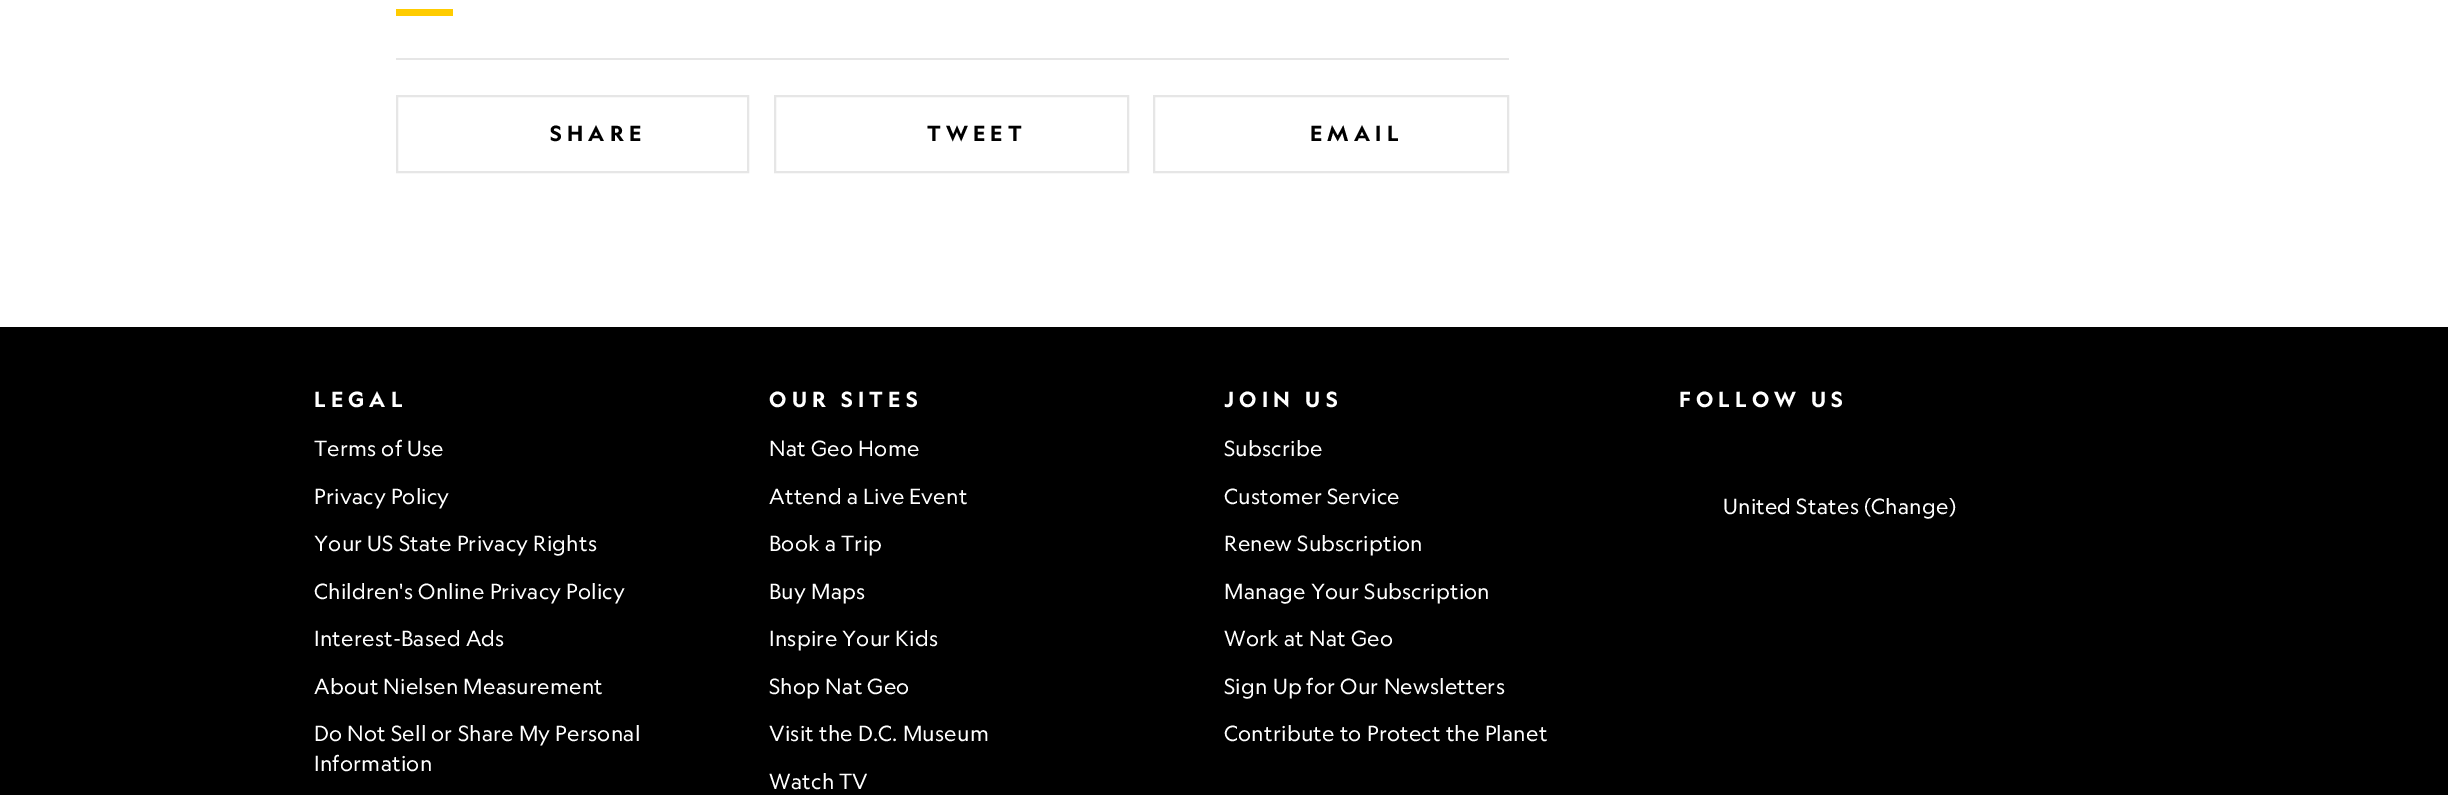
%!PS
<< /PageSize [2448 795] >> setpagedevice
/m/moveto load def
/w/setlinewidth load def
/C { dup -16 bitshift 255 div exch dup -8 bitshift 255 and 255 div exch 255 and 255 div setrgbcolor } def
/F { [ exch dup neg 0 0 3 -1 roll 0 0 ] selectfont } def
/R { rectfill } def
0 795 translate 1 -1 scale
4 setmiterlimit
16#FFFFFF C
0 0 2448 795 R
16#FFCC00 C
396 9 57 7 R
16#E6E6E6 C
396 58 1113 2 R
2 w
397 96 351 76 rectstroke
/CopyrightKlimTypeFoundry-Bold 21 F
16#000000 C
550 141 m 5.25 0 (SHARE) ashow
16#E6E6E6 C
775 96 353 76 rectstroke
16#000000 C
927 141 m 5.25 0 (TWEET) ashow
16#E6E6E6 C
1154 96 354 76 rectstroke
16#000000 C
1310 141 m 5.25 0 (EMAIL) ashow
0 327 2448 468 R
16#FFFFFF C
314 407 m 5.25 0 (LEGAL) ashow
/CopyrightKlimTypeFoundry-Regular 21 F
314 456 m .2 0 (Terms of Use) ashow
314 504 m .2 0 (Privacy Policy) ashow
314 551 m .2 0 (Your US State Privacy Rights) ashow
314 599 m .2 0 (Children's Online Privacy Policy) ashow
314 646 m .2 0 (Interest-Based Ads) ashow
314 694 m .2 0 (About Nielsen Measurement) ashow
314 741 m .2 0 (Do Not Sell or Share My Personal) ashow
314 771 m .2 0 (Information) ashow
/CopyrightKlimTypeFoundry-Bold 21 F
769 407 m 5.25 0 (OUR SITES) ashow
/CopyrightKlimTypeFoundry-Regular 21 F
769 456 m .2 0 (Nat Geo Home) ashow
769 504 m .2 0 (Attend a Live Event) ashow
769 551 m .2 0 (Book a Trip) ashow
769 599 m .2 0 (Buy Maps) ashow
769 646 m .2 0 (Inspire Your Kids) ashow
769 694 m .2 0 (Shop Nat Geo) ashow
769 741 m .2 0 (Visit the D.C. Museum) ashow
769 789 m .2 0 (Watch TV) ashow
/CopyrightKlimTypeFoundry-Bold 21 F
1224 407 m 5.25 0 (JOIN US) ashow
/CopyrightKlimTypeFoundry-Regular 21 F
1224 456 m .2 0 (Subscribe) ashow
1224 504 m .2 0 (Customer Service) ashow
1224 551 m .2 0 (Renew Subscription) ashow
1224 599 m .2 0 (Manage Your Subscription) ashow
1224 646 m .2 0 (Work at Nat Geo) ashow
1224 694 m .2 0 (Sign Up for Our Newsletters) ashow
1224 741 m .2 0 (Contribute to Protect the Planet) ashow
/CopyrightKlimTypeFoundry-Bold 21 F
1679 407 m 5.25 0 (FOLLOW US) ashow
/CopyrightKlimTypeFoundry-Regular 21 F
1723 514 m .2 0 (United States \(Change\)) ashow
showpage
